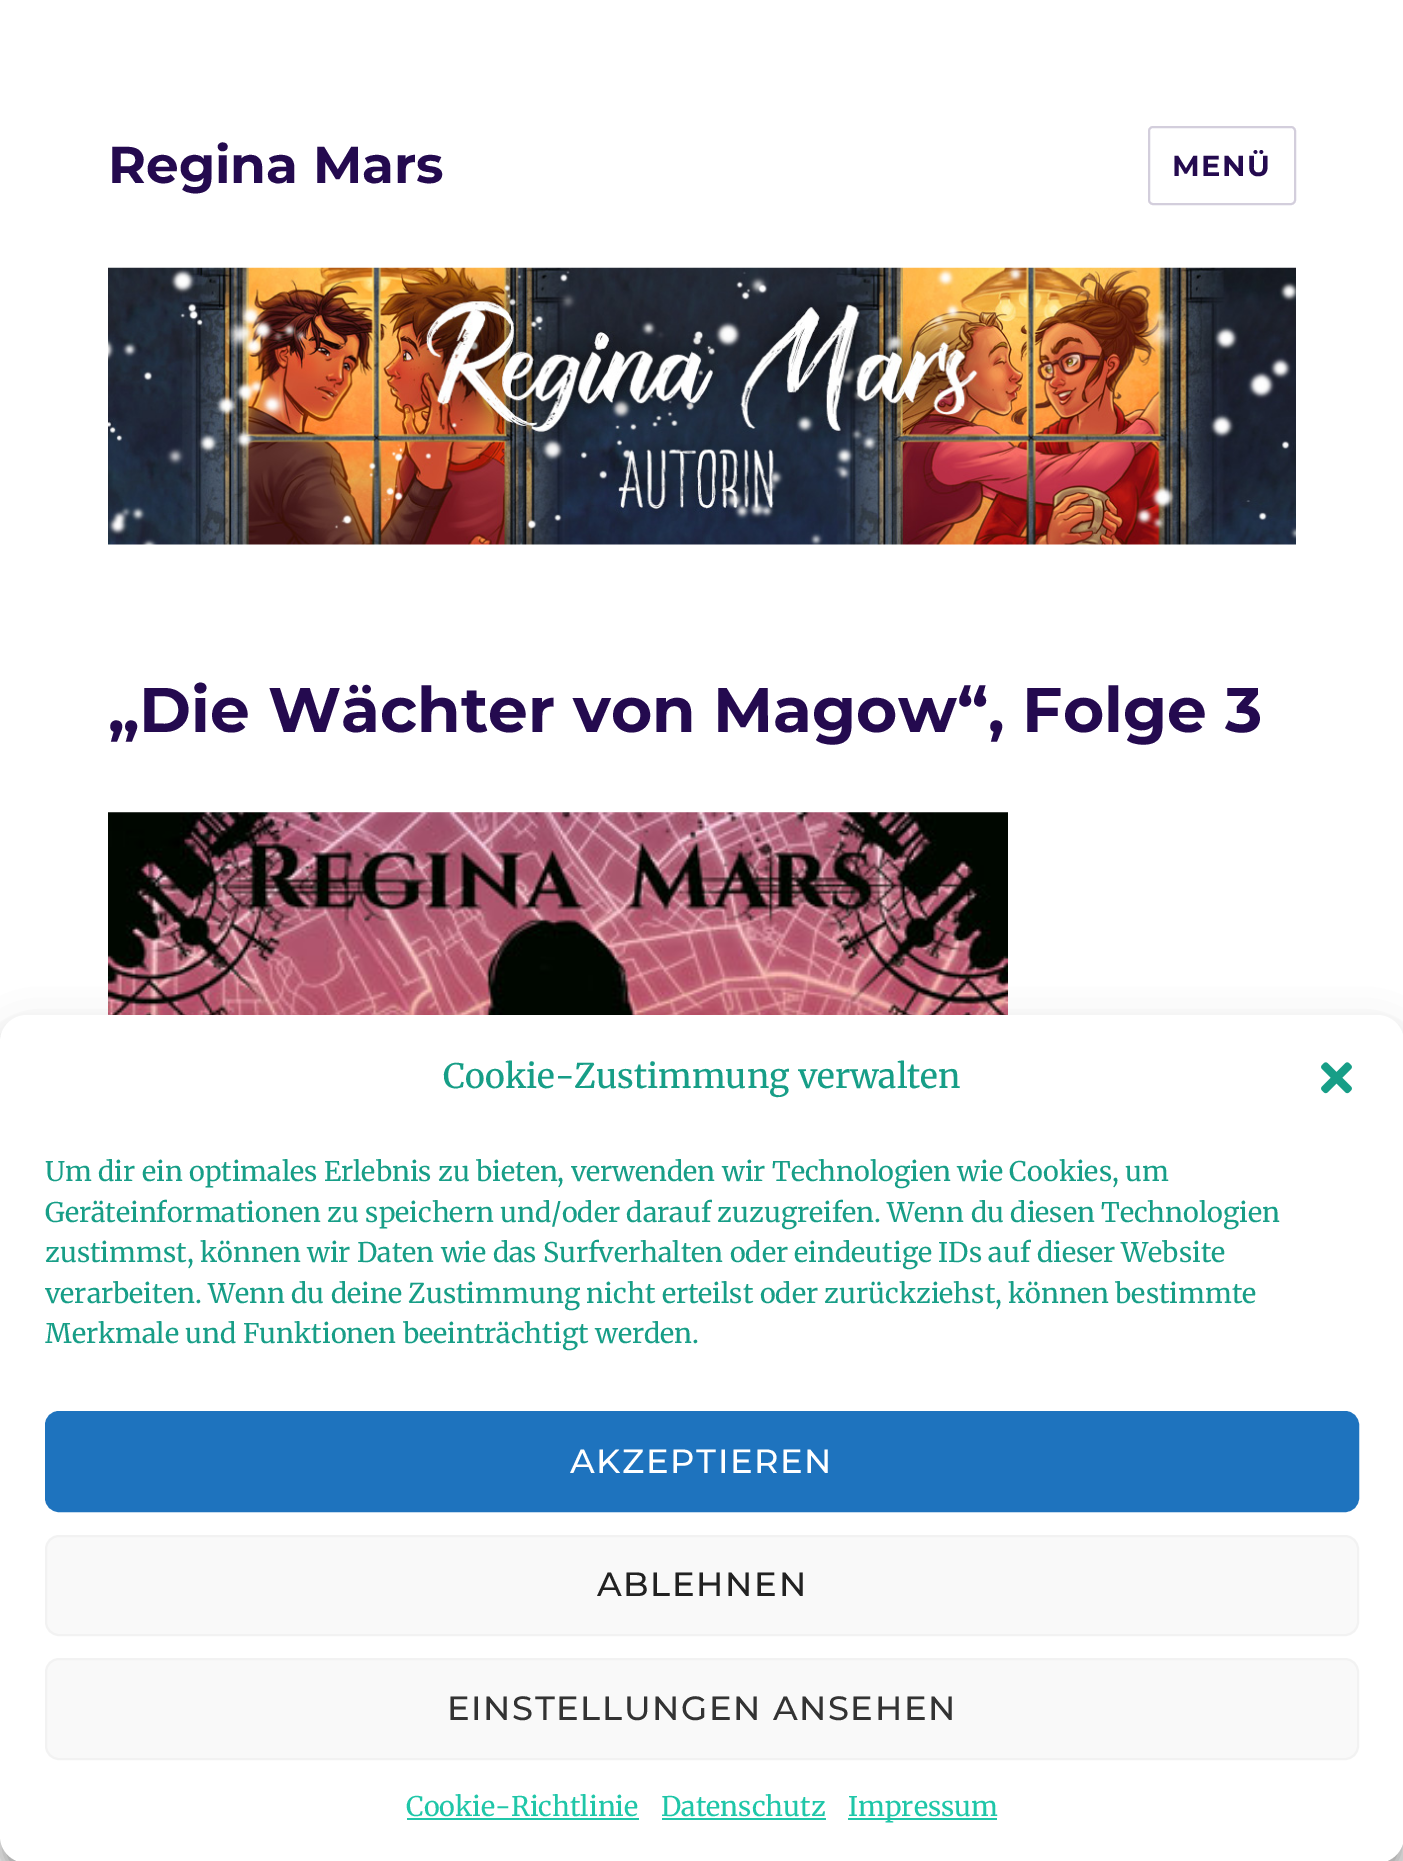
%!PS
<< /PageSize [1403 1861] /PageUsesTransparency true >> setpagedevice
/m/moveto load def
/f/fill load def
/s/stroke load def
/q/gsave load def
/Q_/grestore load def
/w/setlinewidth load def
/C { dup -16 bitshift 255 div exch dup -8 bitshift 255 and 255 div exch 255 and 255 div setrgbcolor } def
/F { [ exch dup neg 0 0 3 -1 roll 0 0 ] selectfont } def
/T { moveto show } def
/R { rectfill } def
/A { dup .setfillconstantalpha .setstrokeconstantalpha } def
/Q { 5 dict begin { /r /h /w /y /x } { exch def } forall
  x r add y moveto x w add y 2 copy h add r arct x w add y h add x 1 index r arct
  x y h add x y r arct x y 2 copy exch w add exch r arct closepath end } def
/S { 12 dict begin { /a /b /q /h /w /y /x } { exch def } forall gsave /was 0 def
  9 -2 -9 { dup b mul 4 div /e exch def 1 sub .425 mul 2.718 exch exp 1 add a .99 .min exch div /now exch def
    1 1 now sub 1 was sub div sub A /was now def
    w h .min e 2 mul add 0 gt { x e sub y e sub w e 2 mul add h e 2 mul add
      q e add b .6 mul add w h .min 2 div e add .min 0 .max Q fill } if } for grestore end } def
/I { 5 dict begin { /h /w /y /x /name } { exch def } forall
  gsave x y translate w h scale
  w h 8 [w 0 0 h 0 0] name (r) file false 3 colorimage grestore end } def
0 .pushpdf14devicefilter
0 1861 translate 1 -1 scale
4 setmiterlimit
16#FFFFFF C
0 0 1403 1861 R
/Montserrat-Bold 51.75 F
16#240A4F C
(Regina Mars) 108 183 T
16#D3CEDC C
2 w
1149 127 146 77 4 Q s
/Montserrat-Bold 29 F
16#240A4F C
1172 176 m 1.5 0 (MENÜ) ashow
(1.rgb) 108 267 1188 278 I
/Montserrat-Bold 63 F
(„Die Wächter von Magow“, Folge 3) 108 732 T
(2.rgb) 108 812 900 203 I
16#000000 C
0 1028 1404 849 27 7 .23 S
0 1037 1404 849 27 22.5 .19 S
16#FFFFFF C
0 1015 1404 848 27 Q f
/Merriweather-Medium 33.75 F
16#179E87 C
(Cookie-Zustimmung verwalten) 443 1088 T
(3.rgb) 1321 1062 31 32 I
/Merriweather-Regular 27 F
(Um dir ein optimales Erlebnis zu bieten, verwenden wir Technologien wie Cookies, um) 45 1181 T
(Geräteinformationen zu speichern und/oder darauf zuzugreifen. Wenn du diesen Technologien) 45 1222 T
(zustimmst, können wir Daten wie das Surfverhalten oder eindeutige IDs auf dieser Website) 45 1262 T
(verarbeiten. Wenn du deine Zustimmung nicht erteilst oder zurückziehst, können bestimmte) 45 1303 T
(Merkmale und Funktionen beeinträchtigt werden.) 45 1343 T
16#1E73BE C
46 1412 1312 99 13 Q q f Q_
s
/Montserrat-Medium 33.75 F
16#FFFFFF C
570 1473 m 1.6 0 (AKZEPTIEREN) ashow
16#F9F9F9 C
46 1536 1312 99 13 Q q f Q_
16#F2F2F2 C
s
16#222222 C
597 1596 m 1.6 0 (ABLEHNEN) ashow
16#F9F9F9 C
46 1659 1312 100 13 Q q f Q_
16#F2F2F2 C
s
16#333333 C
447 1720 m 1.6 0 (EINSTELLUNGEN ANSEHEN) ashow
/Merriweather-Regular 27 F
16#1FC6A8 C
(Cookie-Richtlinie) 406 1816 T
407 1818 232 2 R
(Datenschutz) 661 1816 T
662 1818 164 2 R
848 1818 149 2 R
(Impressum) 848 1816 T
.poppdf14devicefilter showpage
